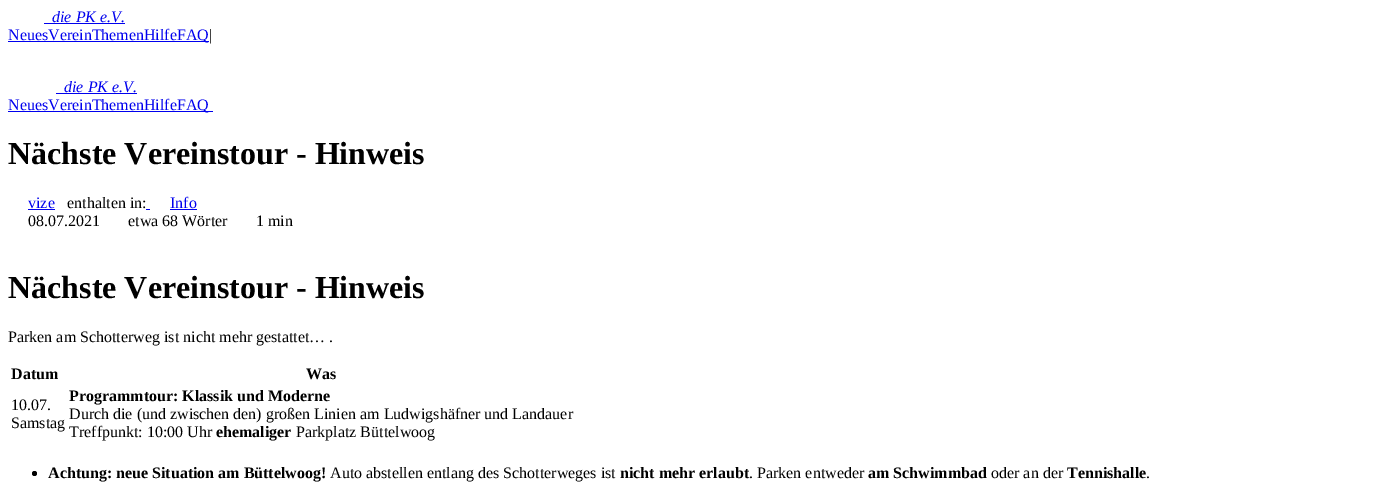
%!PS
<< /PageSize [1376 496] >> setpagedevice
/f/fill load def
/C { dup -16 bitshift 255 div exch dup -8 bitshift 255 and 255 div exch 255 and 255 div setrgbcolor } def
/F { [ exch dup neg 0 0 3 -1 roll 0 0 ] selectfont } def
/T { moveto show } def
/R { rectfill } def
/O { newpath 0 360 arc closepath } def
0 496 translate 1 -1 scale
4 setmiterlimit
16#FFFFFF C
0 0 1376 496 R
/LiberationSerif-Italic 16 F
16#0000EE C
(die PK e.V.) 52 22 T
44 23 81 1 R
8 41 201 1 R
/LiberationSerif-Regular 16 F
(NeuesVereinThemenHilfeFAQ) 8 40 T
16#000000 C
(|) 209 40 T
/LiberationSerif-Italic 16 F
16#0000EE C
(die PK e.V.) 64 92 T
56 93 81 1 R
8 111 205 1 R
/LiberationSerif-Regular 16 F
(NeuesVereinThemenHilfeFAQ) 8 110 T
/LiberationSerif-Bold 32 F
16#000000 C
(Nächste Vereinstour - Hinweis) 8 164 T
/LiberationSerif-Regular 16 F
16#0000EE C
(vize) 28 208 T
28 209 27 1 R
16#000000 C
(enthalten in:) 67 208 T
16#0000EE C
146 209 4 1 R
(Info) 170 208 T
170 209 27 1 R
16#000000 C
(08.07.2021) 28 226 T
(etwa 68 Wörter) 128 226 T
(1 min) 256 226 T
/LiberationSerif-Bold 32 F
(Nächste Vereinstour - Hinweis) 8 298 T
/LiberationSerif-Regular 16 F
(Parken am Schotterweg ist nicht mehr gestattet… .) 8 342 T
/LiberationSerif-Bold 16 F
(Datum) 11 379 T
(Was) 306 379 T
/LiberationSerif-Regular 16 F
(10.07.) 11 410 T
(Samstag) 11 428 T
/LiberationSerif-Bold 16 F
(Programmtour: Klassik und Moderne) 69 401 T
/LiberationSerif-Regular 16 F
(Durch die \(und zwischen den\) großen Linien am Ludwigshäfner und Landauer) 69 419 T
(Treffpunkt: 10:00 Uhr) 69 437 T
/LiberationSerif-Bold 16 F
(ehemaliger) 216 437 T
/LiberationSerif-Regular 16 F
(Parkplatz Büttelwoog) 296 437 T
34.5 473.5 2.5 O f
/LiberationSerif-Bold 16 F
(Achtung: neue Situation am Büttelwoog!) 48 478 T
/LiberationSerif-Regular 16 F
(Auto abstellen entlang des Schotterweges ist) 330 478 T
/LiberationSerif-Bold 16 F
(nicht mehr erlaubt) 620 478 T
/LiberationSerif-Regular 16 F
(. Parken entweder) 749 478 T
/LiberationSerif-Bold 16 F
(am Schwimmbad) 868 478 T
/LiberationSerif-Regular 16 F
(oder an der) 991 478 T
/LiberationSerif-Bold 16 F
(Tennishalle) 1067 478 T
/LiberationSerif-Regular 16 F
(.) 1146 478 T
showpage
